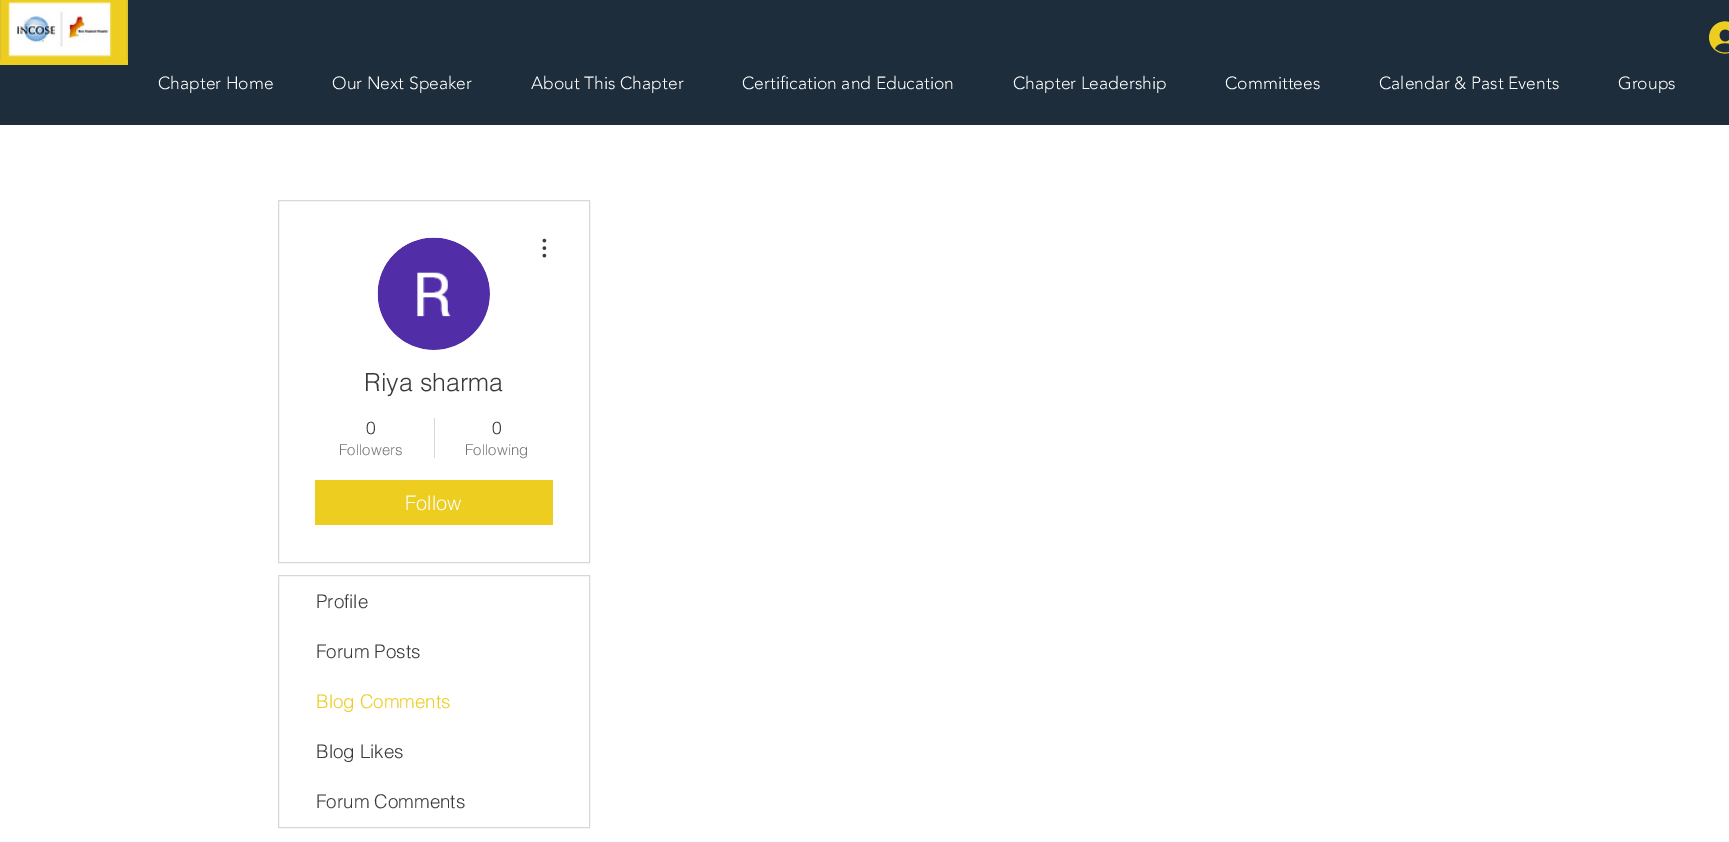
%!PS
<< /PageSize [1729 842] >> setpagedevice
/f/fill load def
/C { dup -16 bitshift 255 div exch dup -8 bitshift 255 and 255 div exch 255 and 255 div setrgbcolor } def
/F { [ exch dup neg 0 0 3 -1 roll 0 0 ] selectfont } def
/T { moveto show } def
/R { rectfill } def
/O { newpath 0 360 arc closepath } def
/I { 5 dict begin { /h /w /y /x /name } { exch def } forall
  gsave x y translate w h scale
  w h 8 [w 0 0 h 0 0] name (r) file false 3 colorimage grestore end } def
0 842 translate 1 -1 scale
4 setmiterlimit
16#FFFFFF C
0 0 1729 842 R
16#1E2D3B C
0 0 1729 125 R
(1.rgb) 1709 21 20 33 I
16#EDCD1F C
0 0 128 65 R
(2.rgb) 0 0 128 60 I
/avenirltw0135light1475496-Light 17.5 F
16#FFFFFF C
(Chapter Home) 158 89 T
(Our Next Speaker) 332 89 T
(About This Chapter) 531 89 T
(Certification and Education) 742 89 T
(Chapter Leadership) 1013 89 T
(Committees) 1225 89 T
(Calendar & Past Events) 1379 89 T
(Groups) 1618 89 T
16#D8D8D8 C
278.5 200.5 311 362 rectstroke
434 294 56 O f
(3.rgb) 377 237 113 113 I
(4.rgb) 542 238 5 20 I
/helvetica-Light 25 F
16#3B3A3A C
(Riya sharma) 364 391 T
/helvetica-Light 17.5 F
(0) 366 434 T
/helvetica-Light 15 F
16#767575 C
(Followers) 339 455 T
16#D8D8D8 C
434 418 1 40 R
/helvetica-Light 17.5 F
16#3B3A3A C
(0) 492 434 T
/helvetica-Light 15 F
16#767575 C
(Following) 465 455 T
16#EDCD1F C
315 480 238 45 R
/helvetica-Light 20 F
16#FFFFFF C
(Follow) 405 510 T
16#D8D8D8 C
278.5 575.5 311 252 rectstroke
/helvetica-Light 18.75 F
16#3B3A3A C
(Profile) 316 608 T
(Forum Posts) 316 658 T
16#EDCD1F C
(Blog Comments) 316 708 T
16#3B3A3A C
(Blog Likes) 316 758 T
(Forum Comments) 316 808 T
showpage
